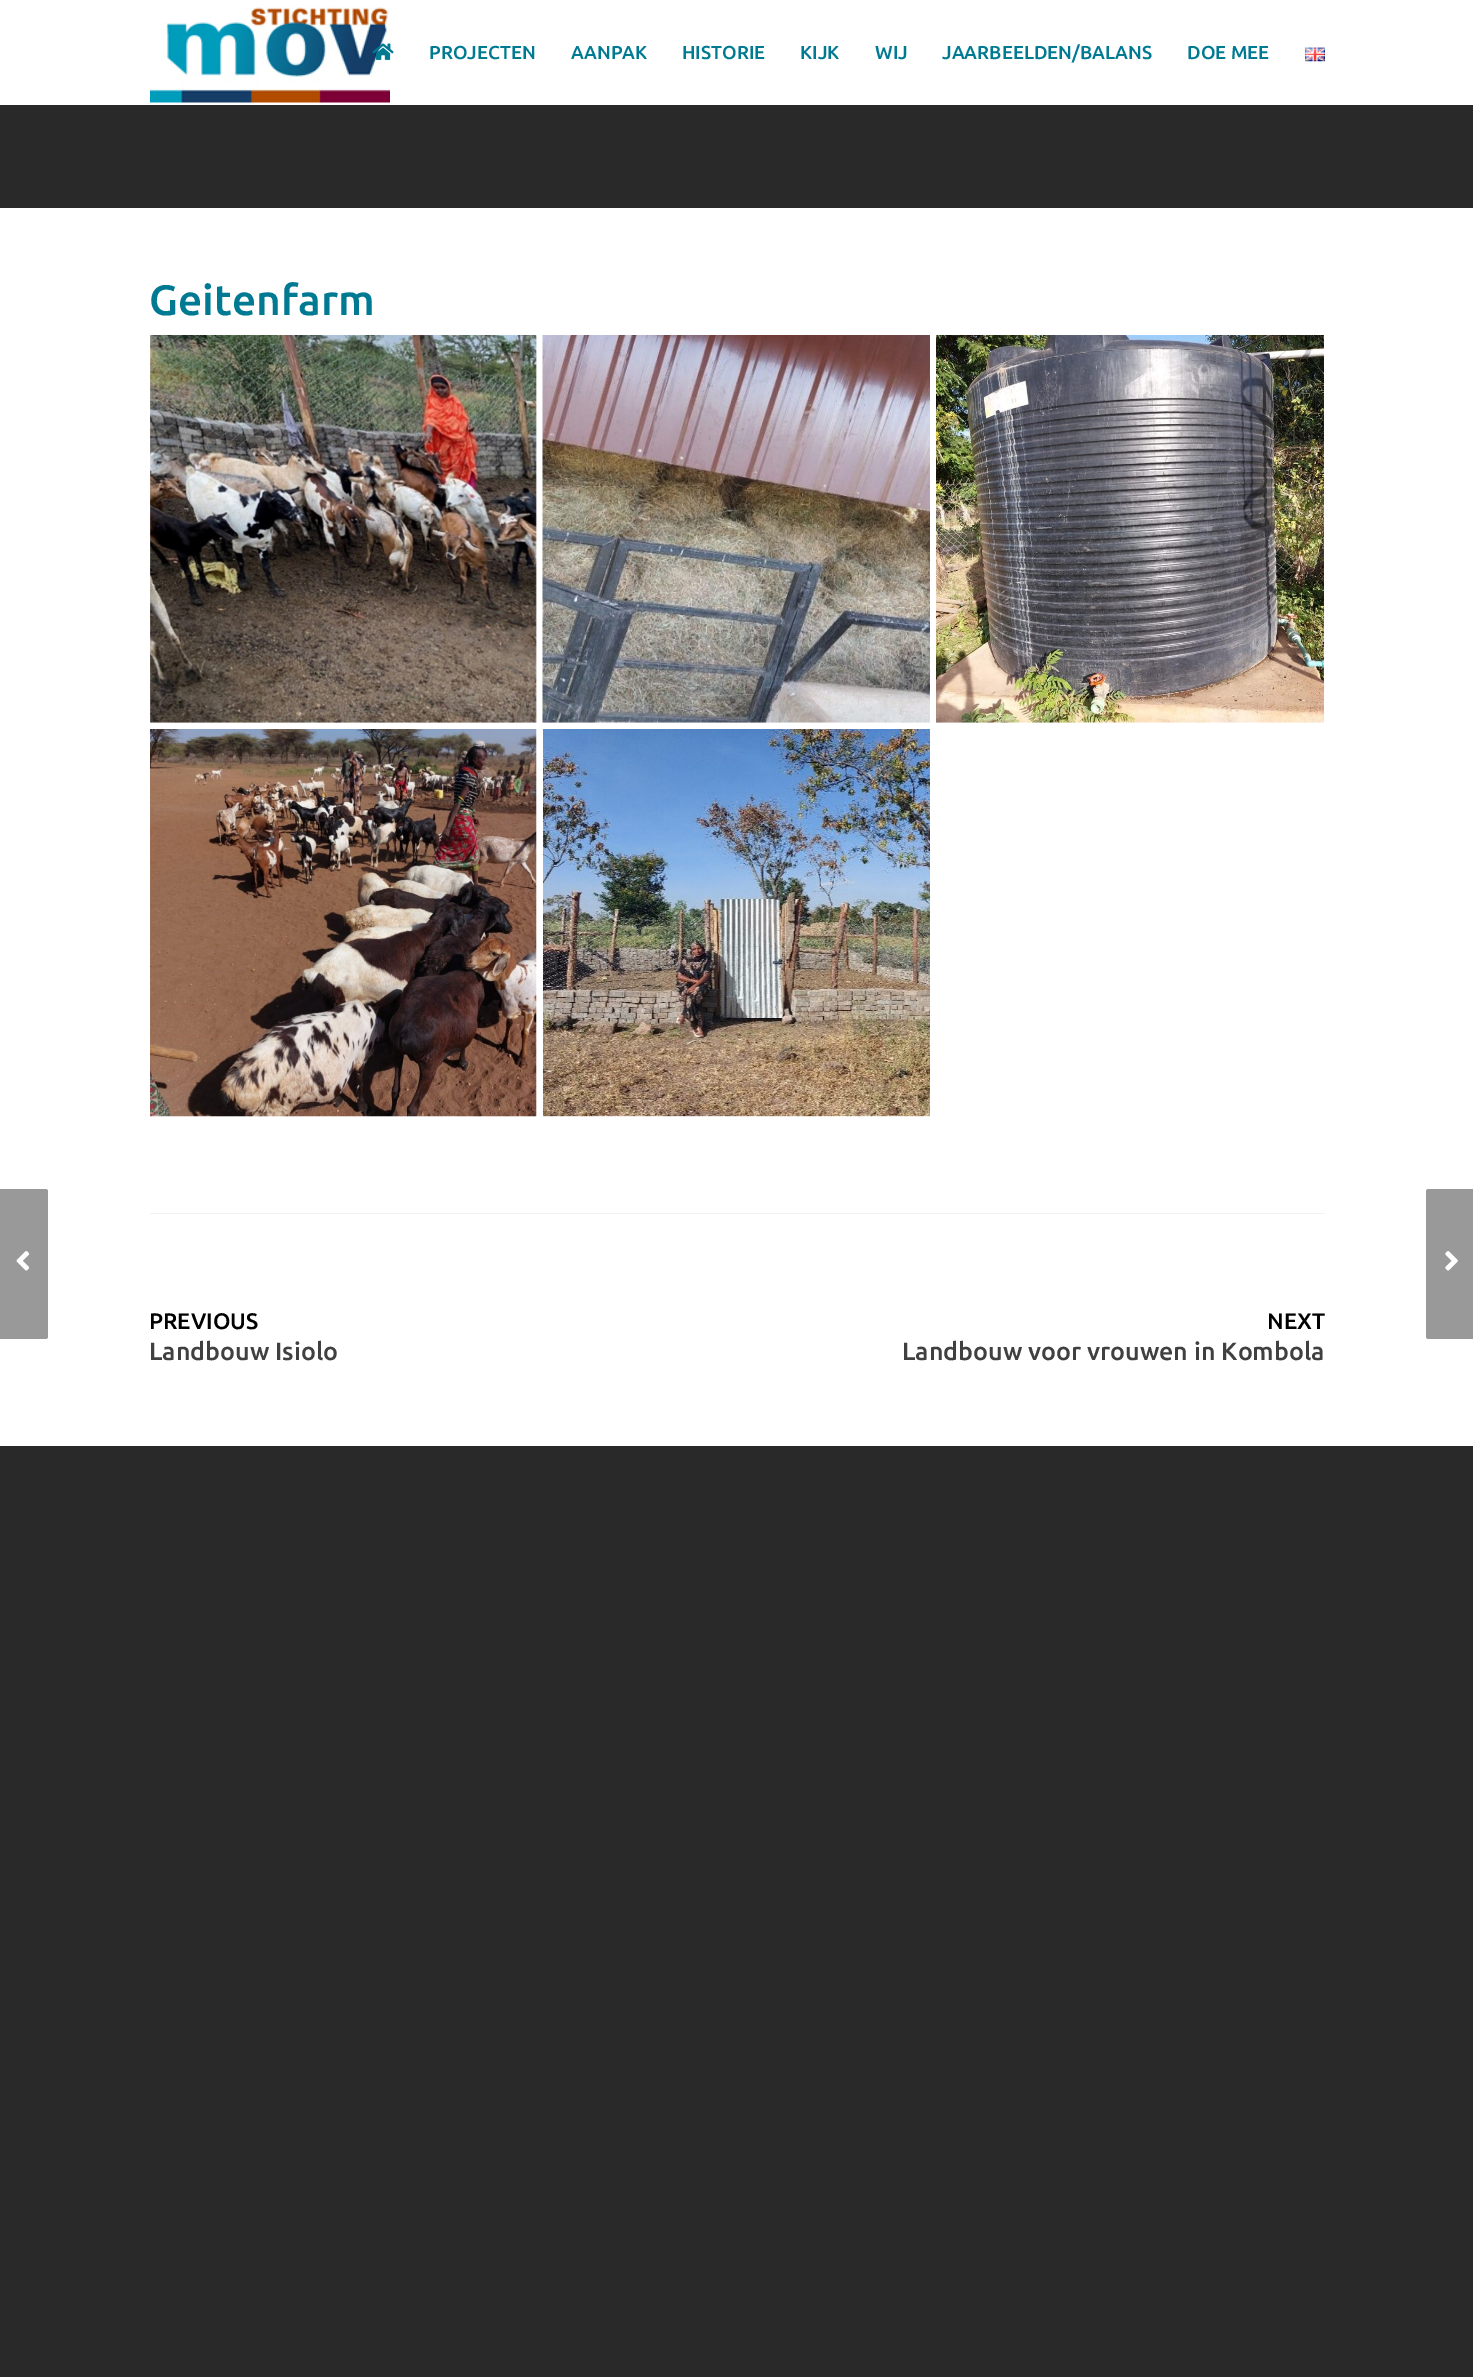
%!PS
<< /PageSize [1473 2377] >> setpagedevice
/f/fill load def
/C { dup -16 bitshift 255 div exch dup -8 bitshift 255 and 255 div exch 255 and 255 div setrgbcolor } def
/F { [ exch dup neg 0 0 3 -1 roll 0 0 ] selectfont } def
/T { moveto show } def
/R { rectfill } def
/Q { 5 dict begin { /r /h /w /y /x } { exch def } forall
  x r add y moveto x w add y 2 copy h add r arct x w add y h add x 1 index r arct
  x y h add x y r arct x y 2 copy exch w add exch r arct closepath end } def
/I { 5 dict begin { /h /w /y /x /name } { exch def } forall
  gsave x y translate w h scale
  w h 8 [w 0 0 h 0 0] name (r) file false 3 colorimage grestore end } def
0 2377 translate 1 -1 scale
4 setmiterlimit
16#292929 C
0 0 1473 2377 R
16#FFFFFF C
0 0 1473 105 R
(1.rgb) 150 5 240 98 I
(2.rgb) 372 43 22 17 I
/Ubuntu-Medium 18.75 F
16#007A92 C
(PROJECTEN) 429 59 T
(AANPAK) 571 59 T
(HISTORIE) 682 59 T
(KIJK) 800 59 T
(WIJ) 875 59 T
(JAARBEELDEN/BALANS) 942 59 T
(DOE MEE) 1187 59 T
(3.rgb) 1305 47 20 15 I
16#FFFFFF C
0 208 1473 1238 R
16#999999 C
-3 1189 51 150 2.5 Q f
(4.rgb) 16 1251 14 20 I
16#F2F2F2 C
150 1213 1175 1 R
/Ubuntu-Medium 42.5 F
16#007A92 C
(Geitenfarm) 149 315 T
(5.rgb) 150 335 387 388 I
(6.rgb) 542 335 388 388 I
(7.rgb) 936 335 388 388 I
(8.rgb) 150 729 387 388 I
(9.rgb) 543 729 387 388 I
/Ubuntu-Medium 22.5 F
16#000000 C
(PREVIOUS) 149 1329 T
/Ubuntu-Medium 25 F
16#404040 C
(Landbouw Isiolo) 149 1360 T
/Ubuntu-Medium 22.5 F
16#000000 C
(NEXT) 1267 1329 T
/Ubuntu-Medium 25 F
16#404040 C
(Landbouw voor vrouwen in Kombola) 902 1360 T
16#999999 C
1426 1189 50 150 2.5 Q f
(10.rgb) 1445 1251 13 20 I
showpage
